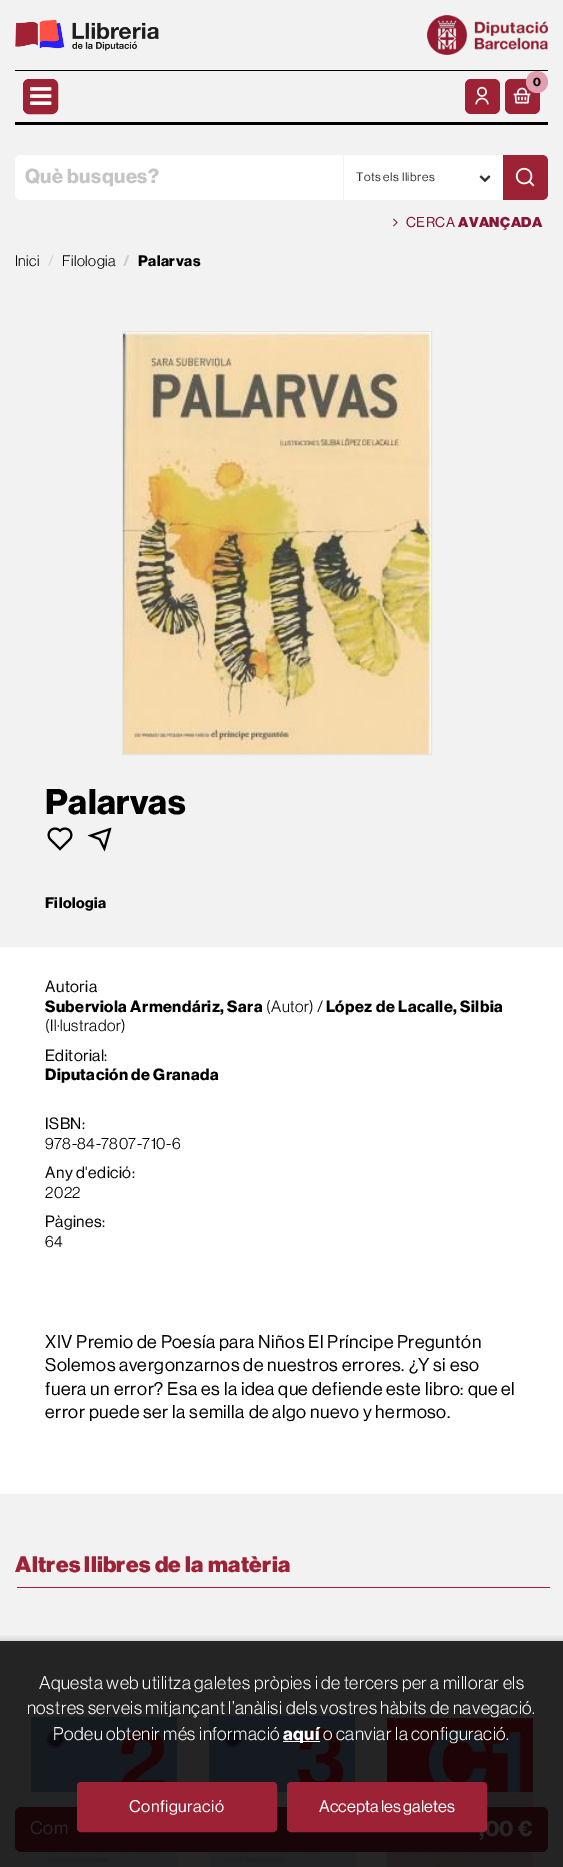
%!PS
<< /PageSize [563 1867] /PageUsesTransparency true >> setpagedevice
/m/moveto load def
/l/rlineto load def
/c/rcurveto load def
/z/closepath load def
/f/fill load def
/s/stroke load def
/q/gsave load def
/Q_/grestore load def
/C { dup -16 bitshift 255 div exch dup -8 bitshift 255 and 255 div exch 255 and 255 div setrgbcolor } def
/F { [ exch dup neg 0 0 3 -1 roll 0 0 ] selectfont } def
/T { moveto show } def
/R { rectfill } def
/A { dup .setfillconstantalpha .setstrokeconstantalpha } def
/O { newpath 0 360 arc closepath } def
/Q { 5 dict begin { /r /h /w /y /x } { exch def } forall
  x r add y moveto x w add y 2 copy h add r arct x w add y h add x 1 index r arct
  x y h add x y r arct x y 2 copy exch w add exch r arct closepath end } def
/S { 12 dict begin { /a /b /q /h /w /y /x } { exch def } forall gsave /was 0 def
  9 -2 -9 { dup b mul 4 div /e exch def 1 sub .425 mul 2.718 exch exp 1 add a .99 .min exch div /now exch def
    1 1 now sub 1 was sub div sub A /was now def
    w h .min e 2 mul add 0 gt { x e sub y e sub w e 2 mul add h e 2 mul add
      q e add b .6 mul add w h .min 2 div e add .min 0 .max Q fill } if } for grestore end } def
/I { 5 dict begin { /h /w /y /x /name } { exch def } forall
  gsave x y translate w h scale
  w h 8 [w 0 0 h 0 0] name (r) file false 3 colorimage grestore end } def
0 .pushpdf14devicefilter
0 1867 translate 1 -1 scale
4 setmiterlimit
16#F2F2F2 C
0 0 563 1867 R
16#242424 C
0 1641 563 226 R
(1.rgb) 15 19 144 32 I
(2.rgb) 427 15 121 40 I
16#000000 C
15 70 533 1 R
15 122 533 3 R
16#9D2235 C
23.5 79.5 34 34 5.5 Q q f Q_
s
(3.rgb) 30 87 22 18 I
465 79 35 35 6 Q f
(4.rgb) 475 86 14 19 I
505 79 35 35 6 Q f
(5.rgb) 513 87 18 17 I
16#E39DB1 C
537 82 11 O f
/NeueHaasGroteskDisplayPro-Bold 12 F
16#000000 C
533 86 m .45 0 (0) ashow
16#FFFFFF C
21 155 m 322 0 l 0 45 l -322 0 l -3.5 0 -6 -2.5 -6 -6 c 0 -33 l 0 -3.5 2.5 -6 6 -6 c z f
/NeueHaasGroteskDisplayPro-Bold 20 F
16#C5C5C5 C
25 183 m .45 0 (Què busques?) ashow
16#FFFFFF C
344 155 159 45 R
/NeueHaasGroteskDisplayPro-Medium 12 F
16#333333 C
356 181 m .45 0 (Tots els llibres) ashow
(6.rgb) 479 175 12 8 I
16#9D2235 C
503 155 m 39 0 l 3.5 0 6 2.5 6 6 c 0 33 l 0 3.5 -2.5 6 -6 6 c -39 0 l z f
(7.rgb) 515 167 20 20 I
(8.rgb) 393 218 5 9 I
/NeueHaasGroteskDisplayPro-Medium 14 F
16#891536 C
406 227 m .45 0 (CERCA) ashow
/NeueHaasGroteskDisplayPro-Black 14 F
458 227 m .45 0 (AVANÇADA) ashow
/NeueHaasGroteskDisplayPro-Regular 15 F
16#000000 C
15 266 m .45 0 (Inici) ashow
16#CCCCCC C
48 266 m .45 0 (/) ashow
16#000000 C
62 266 m .45 0 (Filologia) ashow
/NeueHaasGroteskDisplayPro-Bold 15 F
16#CCCCCC C
123 266 m .45 0 (/) ashow
16#000000 C
138 266 m .45 0 (Palarvas) ashow
16#E4E4E4 C
122.5 331.5 309 423 rectstroke
(9.rgb) 123 332 308 422 I
/NeueHaasGroteskDisplayPro-Bold 35 F
16#000000 C
45 814 m .4 0 (Palarvas) ashow
(10.rgb) 47 827 26 24 I
(11.rgb) 87 827 25 25 I
/NeueHaasGroteskDisplayPro-Bold 15 F
45 908 m .45 0 (Filologia) ashow
(12.rgb) 31 1717 146 150 I
(13.rgb) 209 1716 146 151 I
(14.rgb) 387 1718 146 149 I
0.8 A
16#262626 C
31 1792 502 75 R
1 A
16#180508 C
15 1807 533 45 6 Q f
/NeueHaasGroteskDisplayPro-Medium 18 F
16#262626 C
30 1834 m .45 0 (Com) ashow
/NeueHaasGroteskDisplayPro-Bold 22 F
479 1836 m .45 0 (,00 €) ashow
16#FFFFFF C
0 947 563 547 R
/NeueHaasGroteskDisplayPro-Medium 16 F
16#000000 C
45 992 m .45 0 (Autoria) ashow
/NeueHaasGroteskDisplayPro-Bold 16 F
45 1012 m .45 0 (Suberviola Armendáriz, Sara) ashow
/NeueHaasGroteskDisplayPro-Regular 16 F
266 1012 m .45 0 (\(Autor\) /) ashow
/NeueHaasGroteskDisplayPro-Bold 16 F
326 1012 m .45 0 (López de Lacalle, Silbia) ashow
/NeueHaasGroteskDisplayPro-Regular 16 F
45 1031 m .45 0 (\(Il·lustrador\)) ashow
/NeueHaasGroteskDisplayPro-Medium 16 F
45 1061 m .45 0 (Editorial:) ashow
/NeueHaasGroteskDisplayPro-Bold 16 F
45 1080 m .45 0 (Diputación de Granada) ashow
/NeueHaasGroteskDisplayPro-Medium 16 F
45 1129 m .45 0 (ISBN:) ashow
/NeueHaasGroteskDisplayPro-Regular 16 F
45 1149 m .45 0 (978-84-7807-710-6) ashow
/NeueHaasGroteskDisplayPro-Medium 16 F
45 1178 m .45 0 (Any d'edició:) ashow
/NeueHaasGroteskDisplayPro-Regular 16 F
45 1198 m .45 0 (2022) ashow
/NeueHaasGroteskDisplayPro-Medium 16 F
45 1227 m .45 0 (Pàgines:) ashow
/NeueHaasGroteskDisplayPro-Regular 16 F
45 1247 m .45 0 (64) ashow
/NeueHaasGroteskDisplayPro-Medium 18 F
45 1348 m .5 0 (XIV Premio de Poesía para Niños El Príncipe Preguntón) ashow
45 1371 m .5 0 (Solemos avergonzarnos de nuestros errores. ¿Y si eso) ashow
45 1395 m .5 0 (fuera un error? Esa es la idea que defiende este libro: que el) ashow
45 1418 m .5 0 (error puede ser la semilla de algo nuevo y hermoso.) ashow
/NeueHaasGroteskDisplayPro-Black 22 F
16#9D2235 C
15 1572 m .4 0 (Altres llibres de la matèria) ashow
17 1587 533 1 R
q
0 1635 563 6 rectclip
16#000000 C
-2 1639 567 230 0 4 .15 S
Q_
/NeueHaasGroteskDisplayPro-Regular 18 F
16#FFFFFF C
39 1689 m .45 0 (Aquesta web utilitza galetes pròpies i de tercers per a millorar els) ashow
27 1714 m .45 0 (nostres serveis mitjançant l’anàlisi dels vostres hàbits de navegació.) ashow
53 1740 m .45 0 (Podeu obtenir més informació) ashow
283 1741 37 1 R
/NeueHaasGroteskDisplayPro-Bold 18 F
283 1740 m .45 0 (aquí) ashow
/NeueHaasGroteskDisplayPro-Regular 18 F
323 1740 m .45 0 (o canviar la configuració.) ashow
16#9D2235 C
77.5 1782.5 199 49 3.5 Q q f Q_
s
/NeueHaasGroteskDisplayPro-Medium 16.5 F
16#FFFFFF C
129 1812 m .45 0 (Configuració) ashow
16#9D2235 C
287.5 1782.5 199 49 3.5 Q q f Q_
s
16#FFFFFF C
(Accepta les galetes) 319 1812 T
.poppdf14devicefilter showpage
